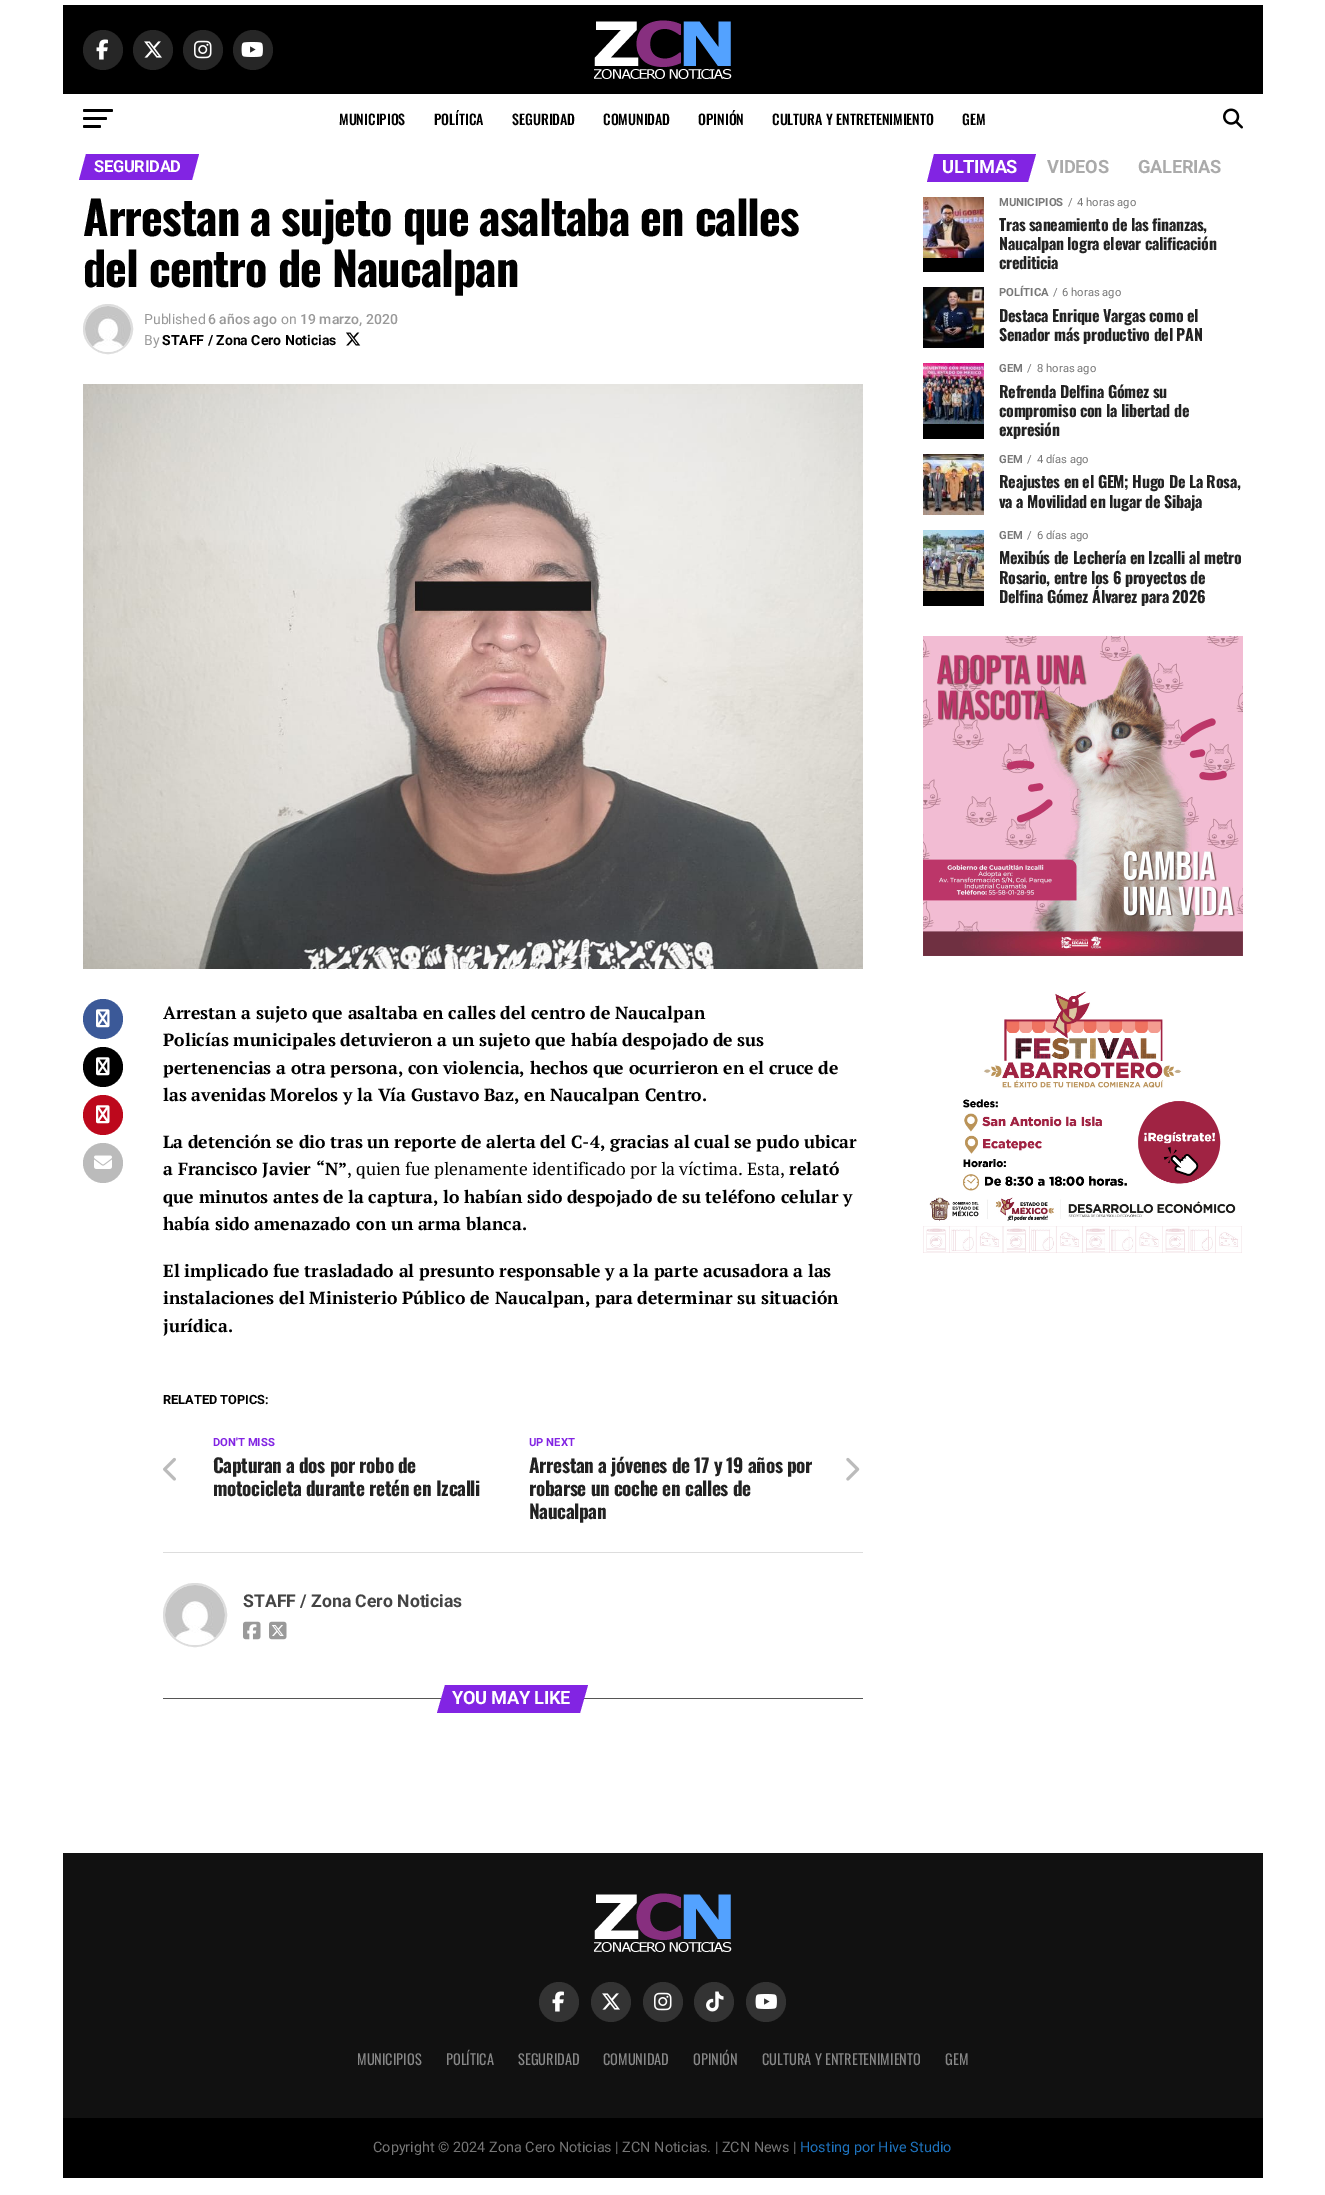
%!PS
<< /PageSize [1325 2195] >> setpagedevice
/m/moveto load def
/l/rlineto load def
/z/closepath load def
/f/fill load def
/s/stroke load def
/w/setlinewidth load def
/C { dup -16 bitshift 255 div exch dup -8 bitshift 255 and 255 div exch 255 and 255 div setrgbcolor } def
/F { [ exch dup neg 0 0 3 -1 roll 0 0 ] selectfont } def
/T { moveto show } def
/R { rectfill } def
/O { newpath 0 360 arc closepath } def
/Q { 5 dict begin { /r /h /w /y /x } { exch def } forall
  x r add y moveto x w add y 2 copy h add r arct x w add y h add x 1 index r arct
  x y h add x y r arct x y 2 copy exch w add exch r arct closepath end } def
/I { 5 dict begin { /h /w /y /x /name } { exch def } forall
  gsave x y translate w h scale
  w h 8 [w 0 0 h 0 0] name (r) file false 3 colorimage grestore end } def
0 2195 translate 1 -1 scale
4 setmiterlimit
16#FFFFFF C
0 0 1325 2195 R
16#000000 C
63 5 1200 89 R
16#262626 C
103 50 20 O f
(1.rgb) 96 39 12 21 I
153 50 20 O f
(2.rgb) 144 41 18 17 I
203 50 20 O f
(3.rgb) 194 40 18 19 I
253 50 20 O f
(4.rgb) 241 42 22 15 I
(5.rgb) 594 20 138 59 I
16#000000 C
83 109 30 3 1.5 Q f
83 117 24 3 1.5 Q f
83 125 18 3 1.5 Q f
/Oswald-Medium 14 F
(MUNICIPIOS) 339 125 T
(POLÍTICA) 434 125 T
(SEGURIDAD) 512 125 T
(COMUNIDAD) 603 125 T
(OPINIÓN) 698 125 T
(CULTURA Y ENTRETENIMIENTO) 772 125 T
(GEM) 962 125 T
(6.rgb) 1223 108 20 21 I
16#8224E3 C
86 154 m 113 0 l -7 26 l -113 0 l z f
/Roboto-Bold 16.5 F
16#FFFFFF C
94 172 m -.3 0 (SEGURIDAD) ashow
/Oswald-Bold 46.4 F
16#000000 C
83 236 m -.95 0 (Arrestan a sujeto que asaltaba en calles) ashow
83 287 m -.95 0 (del centro de Naucalpan) ashow
16#DDDDDD C
2 w
108 329 24 O s
(7.rgb) 85 306 46 46 I
/Roboto-Regular 14 F
16#999999 C
(Published) 144 324 T
/Roboto-Medium 14 F
(6 años ago) 208 324 T
/Roboto-Regular 14 F
(on) 281 324 T
/Roboto-Medium 14 F
(19 marzo, 2020) 300 324 T
/Roboto-Regular 14 F
(By) 144 345 T
/Roboto-Bold 14 F
16#000000 C
(STAFF / Zona Cero Noticias) 162 345 T
(8.rgb) 346 332 15 14 I
(9.rgb) 83 384 780 585 I
16#3B5998 C
103 1019 20 O f
(10.rgb) 96 1009 14 19 I
16#000000 C
103 1067 20 O f
(11.rgb) 96 1057 14 19 I
16#BD081C C
103 1115 20 O f
(12.rgb) 96 1105 14 19 I
16#BBBBBB C
103 1163 20 O f
(13.rgb) 94 1155 18 14 I
/PTSerif-Bold 17.6 F
16#000000 C
(Arrestan a sujeto que asaltaba en calles del centro de Naucalpan) 163 1019 T
(Policías municipales detuvieron a un sujeto que había despojado de sus) 163 1046 T
(pertenencias a otra persona, con violencia, hechos que ocurrieron en el cruce de) 163 1074 T
(las avenidas Morelos y la Vía Gustavo Baz, en Naucalpan Centro.) 163 1101 T
(La detención se dio tras un reporte de alerta del C-4, gracias al cual se pudo ubicar) 163 1148 T
(a Francisco Javier “N”) 163 1175 T
/PTSerif-Regular 17.6 F
(, quien fue plenamente identificado por la víctima. Esta,) 347 1175 T
/PTSerif-Bold 17.6 F
(relató) 789 1175 T
(que minutos antes de la captura, lo habían sido despojado de su teléfono celular y) 163 1203 T
(había sido amenazado con un arma blanca.) 163 1230 T
(El implicado fue trasladado al presunto responsable y a la parte acusadora a las) 163 1277 T
(instalaciones del Ministerio Público de Naucalpan, para determinar su situación) 163 1304 T
(jurídica.) 163 1332 T
/Roboto-Bold 12.75 F
(RELATED TOPICS:) 163 1404 T
16#DDDDDD C
163 1552 700 1 R
(14.rgb) 163 1457 13 24 I
/Roboto-Bold 11.25 F
16#8224E3 C
(DON'T MISS) 213 1446 T
/Oswald-Bold 19.25 F
16#222222 C
213 1473 m -.4 0 (Capturan a dos por robo de) ashow
213 1496 m -.4 0 (motocicleta durante retén en Izcalli) ashow
/Roboto-Bold 11.25 F
16#8224E3 C
(UP NEXT) 529 1446 T
/Oswald-Bold 19.25 F
16#222222 C
529 1473 m -.4 0 (Arrestan a jóvenes de 17 y 19 años por) ashow
529 1496 m -.4 0 (robarse un coche en calles de) ashow
529 1519 m -.4 0 (Naucalpan) ashow
(15.rgb) 846 1457 14 24 I
16#DDDDDD C
195 1615 31 O s
(16.rgb) 165 1585 60 60 I
/Roboto-Bold 17.6 F
16#444444 C
(STAFF / Zona Cero Noticias) 243 1607 T
(17.rgb) 243 1621 18 19 I
(18.rgb) 269 1621 18 19 I
16#555555 C
163 1698 700 1 R
16#8224E3 C
445 1685 m 143 0 l -8 28 l -143 0 l z f
/Roboto-Bold 18.25 F
16#FFFFFF C
452 1704 m -.3 0 (YOU MAY LIKE) ashow
16#8224E3 C
934 154 m 102 0 l -8 28 l -101 0 l z f
16#FFFFFF C
942 173 m -.4 0 (ULTIMAS) ashow
16#AAAAAA C
1047 173 m -.25 0 (VIDEOS) ashow
1138 173 m -.25 0 (GALERIAS) ashow
16#000000 C
923 258 61 14 R
(19.rgb) 923 197 61 61 I
/Roboto-Bold 11.25 F
16#777777 C
(MUNICIPIOS) 999 206 T
/Roboto-Regular 11.25 F
(/) 1068 206 T
(4 horas ago) 1077 206 T
/Oswald-Bold 16 F
16#222222 C
999 231 m -.3 0 (Tras saneamiento de las finanzas,) ashow
999 250 m -.3 0 (Naucalpan logra elevar calificación) ashow
999 269 m -.3 0 (crediticia) ashow
(20.rgb) 923 287 61 61 I
/Roboto-Bold 11.25 F
16#777777 C
(POLÍTICA) 999 296 T
/Roboto-Regular 11.25 F
(/) 1053 296 T
(6 horas ago) 1062 296 T
/Oswald-Bold 16 F
16#222222 C
999 322 m -.3 0 (Destaca Enrique Vargas como el) ashow
999 341 m -.3 0 (Senador más productivo del PAN) ashow
16#000000 C
923 424 61 15 R
(21.rgb) 923 363 61 61 I
/Roboto-Bold 11.25 F
16#777777 C
(GEM) 999 372 T
/Roboto-Regular 11.25 F
(/) 1027 372 T
(8 horas ago) 1037 372 T
/Oswald-Bold 16 F
16#222222 C
999 398 m -.3 0 (Refrenda Delfina Gómez su) ashow
999 417 m -.3 0 (compromiso con la libertad de) ashow
999 436 m -.3 0 (expresión) ashow
(22.rgb) 923 454 61 61 I
/Roboto-Bold 11.25 F
16#777777 C
(GEM) 999 463 T
/Roboto-Regular 11.25 F
(/) 1027 463 T
(4 días ago) 1037 463 T
/Oswald-Bold 16 F
16#222222 C
999 488 m -.3 0 (Reajustes en el GEM; Hugo De La Rosa,) ashow
999 508 m -.3 0 (va a Movilidad en lugar de Sibaja) ashow
16#000000 C
923 591 61 15 R
(23.rgb) 923 530 61 61 I
/Roboto-Bold 11.25 F
16#777777 C
(GEM) 999 539 T
/Roboto-Regular 11.25 F
(/) 1027 539 T
(6 días ago) 1037 539 T
/Oswald-Bold 16 F
16#222222 C
999 564 m -.3 0 (Mexibús de Lechería en Izcalli al metro) ashow
999 584 m -.3 0 (Rosario, entre los 6 proyectos de) ashow
999 603 m -.3 0 (Delfina Gómez Álvarez para 2026) ashow
(24.rgb) 923 636 320 320 I
(25.rgb) 923 991 319 262 I
16#111111 C
63 1853 1200 265 R
(26.rgb) 594 1893 138 59 I
16#333333 C
559 2002 20 O f
(27.rgb) 552 1991 12 21 I
611 2002 20 O f
(28.rgb) 602 1993 18 17 I
663 2002 20 O f
(29.rgb) 654 1992 18 19 I
714 2002 20 O f
(30.rgb) 706 1991 18 21 I
766 2002 20 O f
(31.rgb) 755 1994 22 15 I
/Oswald-Regular 14.4 F
16#888888 C
(MUNICIPIOS) 357 2065 T
(POLÍTICA) 446 2065 T
(SEGURIDAD) 518 2065 T
(COMUNIDAD) 603 2065 T
(OPINIÓN) 693 2065 T
(CULTURA Y ENTRETENIMIENTO) 762 2065 T
(GEM) 945 2065 T
16#000000 C
63 2118 1200 60 R
/Roboto-Regular 14.4 F
16#777777 C
(Copyright © 2024 Zona Cero Noticias | ZCN Noticias. | ZCN News |) 373 2152 T
16#1E73BE C
(Hosting por Hive Studio) 800 2152 T
showpage
